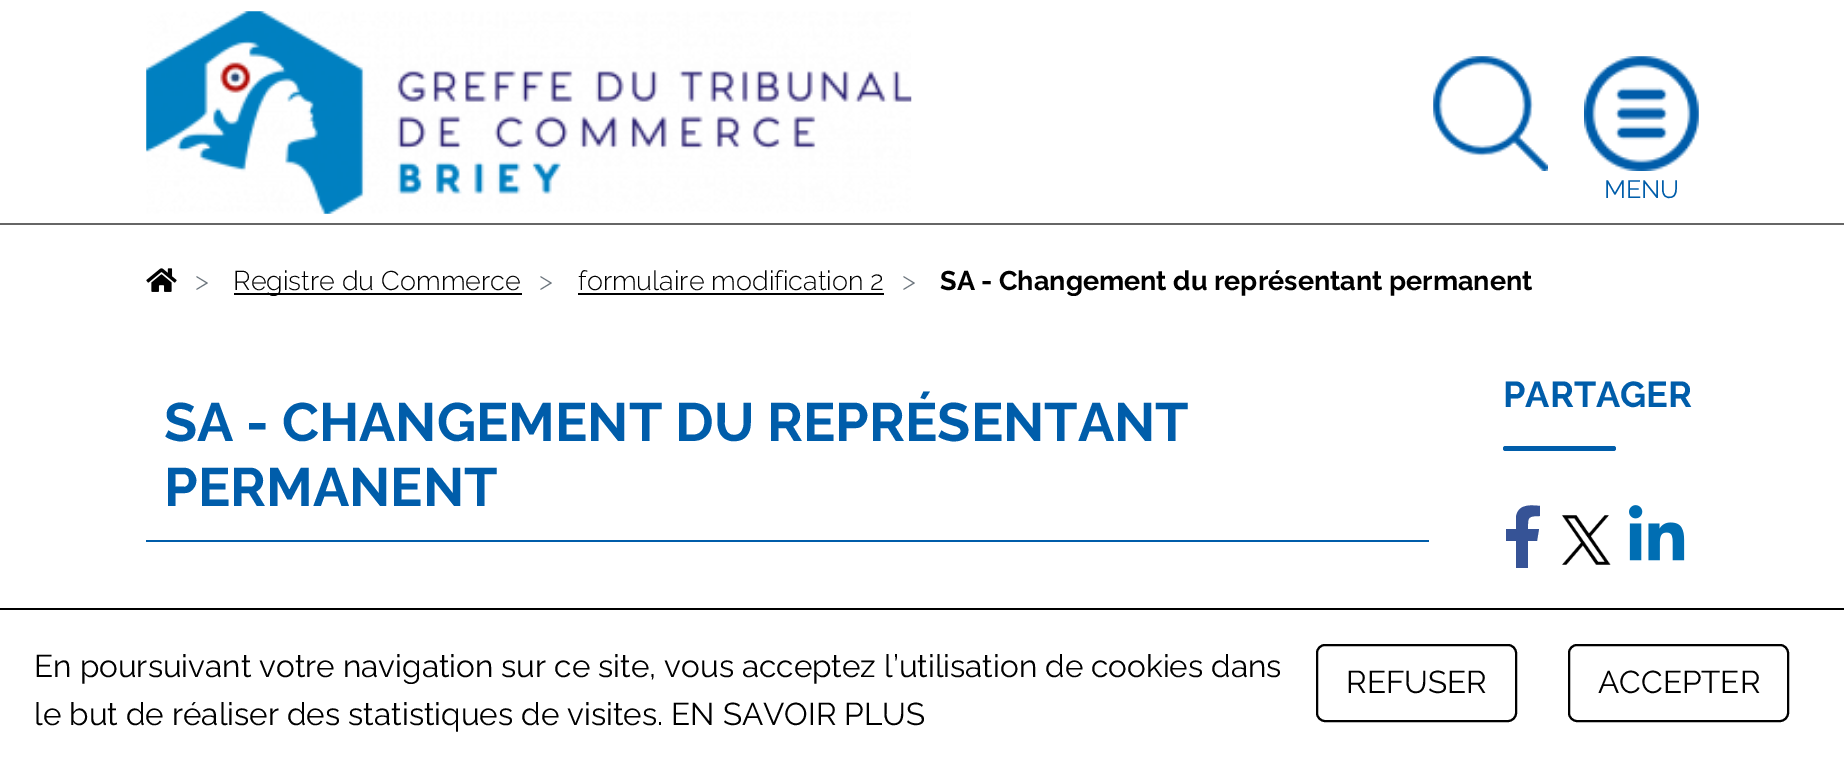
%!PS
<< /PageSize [1844 770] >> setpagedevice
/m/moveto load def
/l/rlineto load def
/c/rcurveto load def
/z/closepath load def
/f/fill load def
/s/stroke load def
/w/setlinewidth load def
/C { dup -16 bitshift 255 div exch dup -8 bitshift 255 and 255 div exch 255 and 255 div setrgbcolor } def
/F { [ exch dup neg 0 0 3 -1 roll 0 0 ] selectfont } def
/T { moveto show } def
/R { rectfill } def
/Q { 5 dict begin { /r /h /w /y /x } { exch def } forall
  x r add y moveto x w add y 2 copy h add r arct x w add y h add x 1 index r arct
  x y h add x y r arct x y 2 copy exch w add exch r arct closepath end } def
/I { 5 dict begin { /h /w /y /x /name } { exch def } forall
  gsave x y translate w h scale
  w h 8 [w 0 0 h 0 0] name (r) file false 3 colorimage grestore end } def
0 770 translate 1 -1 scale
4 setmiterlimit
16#FFFFFF C
0 0 1844 770 R
16#666666 C
0 223 1844 2 R
(1.rgb) 146 11 766 203 I
(2.rgb) 1433 56 115 115 I
(3.rgb) 1584 56 115 115 I
/Raleway-Regular 25 F
16#005DAA C
(MENU) 1604 198 T
(4.rgb) 146 268 31 24 I
/Raleway-Light 27 F
16#6C757D C
(>) 195 290 T
16#000000 C
234 293 288 2 R
(Registre du Commerce) 233 290 T
16#6C757D C
(>) 539 290 T
16#000000 C
(formulaire modification 2) 578 290 T
578 293 306 2 R
16#6C757D C
(>) 902 290 T
/Raleway-Bold 27 F
16#000000 C
(SA - Changement du représentant permanent) 940 290 T
16#005DAA C
146 540 1283 2 R
/Raleway-Bold 54 F
(SA - CHANGEMENT DU REPRÉSENTANT) 164 441 T
(PERMANENT) 164 506 T
/Raleway-Bold 36 F
(PARTAGER) 1503 407 T
1503 446 113 5 2.5 Q f
16#365396 C
1537 541 m -9 0 l 0 27 l -12 0 l 0 -27 l -10 0 l 0 -12 l 10 0 l 0 -12 l 2 -13 14 -12 24 -11 c 0 10 l -13 0 -12 2 -12 13 c 11 0 l z f
(5.rgb) 1561 515 50 50 I
(6.rgb) 1629 505 56 56 I
16#000000 C
0 608 1844 2 R
/Raleway-Regular 31.5 F
(En poursuivant votre navigation sur ce site, vous acceptez l’utilisation de cookies dans) 34 677 T
(le but de réaliser des statistiques de visites. EN SAVOIR PLUS) 34 725 T
2 w
1317 645 199 76 8 Q s
(REFUSER) 1346 693 T
1569 645 219 76 8 Q s
(ACCEPTER) 1598 693 T
showpage
